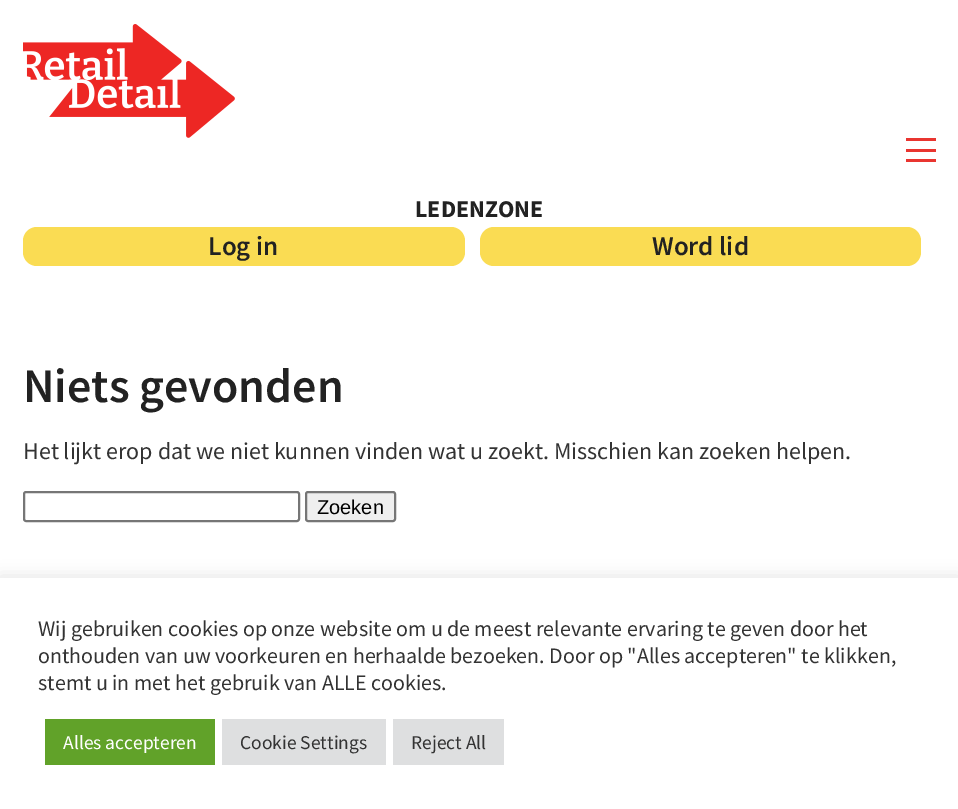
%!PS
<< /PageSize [958 809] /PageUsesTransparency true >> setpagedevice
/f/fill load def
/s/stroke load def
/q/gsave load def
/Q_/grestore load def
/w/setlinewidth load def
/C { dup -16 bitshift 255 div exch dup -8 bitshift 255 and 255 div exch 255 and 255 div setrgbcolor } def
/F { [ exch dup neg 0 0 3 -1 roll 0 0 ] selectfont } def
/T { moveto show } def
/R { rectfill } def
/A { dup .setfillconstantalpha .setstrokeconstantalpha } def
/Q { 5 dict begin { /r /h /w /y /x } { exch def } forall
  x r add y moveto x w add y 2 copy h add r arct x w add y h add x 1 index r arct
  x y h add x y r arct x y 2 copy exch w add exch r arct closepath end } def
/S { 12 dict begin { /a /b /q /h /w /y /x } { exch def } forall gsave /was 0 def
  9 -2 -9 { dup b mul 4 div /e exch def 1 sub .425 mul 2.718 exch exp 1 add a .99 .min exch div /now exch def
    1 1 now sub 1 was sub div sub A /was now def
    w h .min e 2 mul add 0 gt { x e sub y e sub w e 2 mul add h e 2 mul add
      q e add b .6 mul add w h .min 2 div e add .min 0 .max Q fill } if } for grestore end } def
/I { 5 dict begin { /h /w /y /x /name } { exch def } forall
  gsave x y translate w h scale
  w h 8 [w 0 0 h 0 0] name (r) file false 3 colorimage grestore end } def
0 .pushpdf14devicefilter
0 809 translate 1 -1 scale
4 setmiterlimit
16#FFFFFF C
0 0 958 809 R
(1.rgb) 23 24 212 114 I
16#E93530 C
906 138 30 3 R
906 149 30 3 R
906 159 30 3 R
/SourceSansPro-Bold 24 F
16#222222 C
(LEDENZONE) 415 217 T
16#FADC53 C
23 227 442 39 14 Q f
/SourceSansPro-SemiBold 27 F
16#222222 C
(Log in) 208 255 T
16#FADC53 C
480 227 441 39 14 Q f
16#222222 C
(Word lid) 652 255 T
/SourceSansPro-SemiBold 48 F
(Niets gevonden) 23 402 T
/SourceSansPro-Regular 24 F
16#333333 C
(Het lijkt erop dat we niet kunnen vinden wat u zoekt. Misschien kan zoeken helpen.) 23 459 T
16#767676 C
2 w
24 492 275 29 2 Q s
16#EFEFEF C
306 492 89 29 2 Q q f Q_
16#767676 C
s
/LiberationSans-Regular 20 F
16#000000 C
(Zoeken) 317 514 T
16#ACABAB C
0 576 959 233 0 7.5 .3 S
16#FFFFFF C
0 578 958 231 R
/SourceSansPro-Regular 22 F
16#333333 C
(Wij gebruiken cookies op onze website om u de meest relevante ervaring te geven door het) 38 636 T
(onthouden van uw voorkeuren en herhaalde bezoeken. Door op "Alles accepteren" te klikken,) 38 663 T
(stemt u in met het gebruik van ALLE cookies.) 38 690 T
16#61A229 C
45 719 170 46 R
/SourceSansPro-Regular 19.5 F
16#FFFFFF C
(Alles accepteren) 63 749 T
16#DEDFE0 C
222 719 164 46 R
16#333333 C
(Cookie Settings) 240 749 T
16#DEDFE0 C
393 719 111 46 R
16#333333 C
(Reject All) 411 749 T
.poppdf14devicefilter showpage
